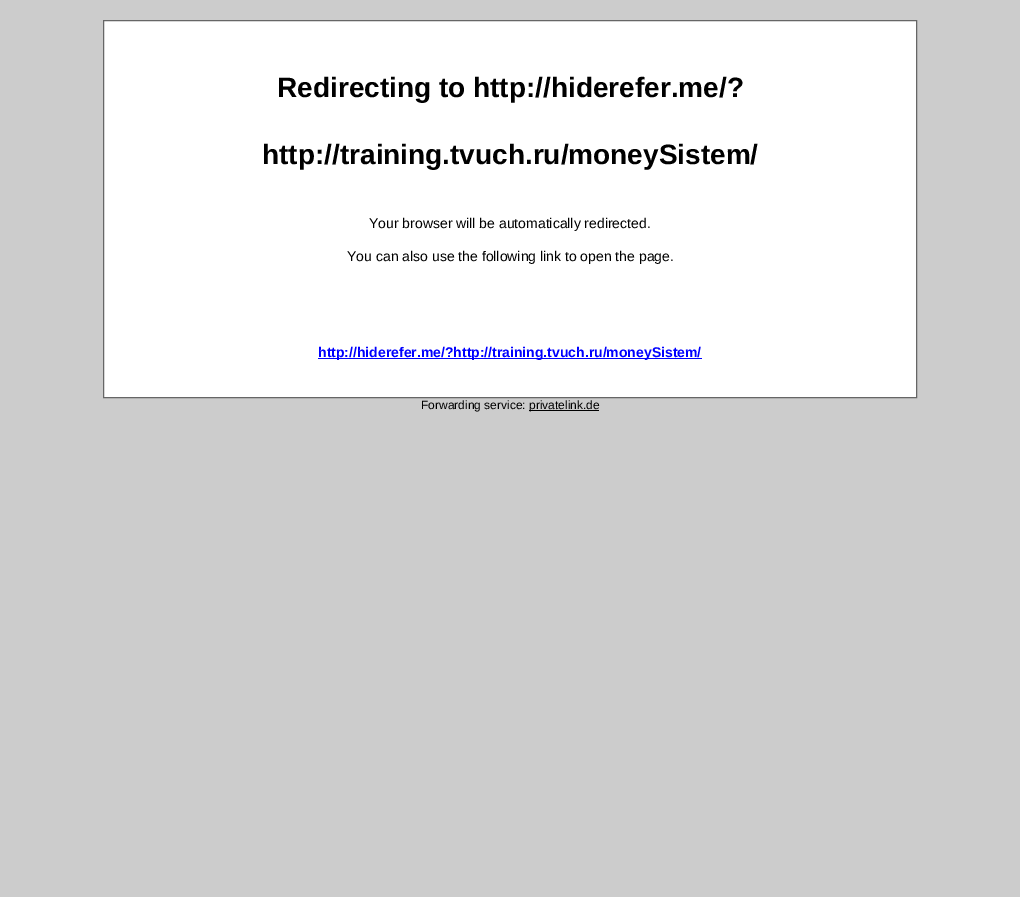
%!PS
<< /PageSize [1020 897] >> setpagedevice
/m/moveto load def
/l/rlineto load def
/z/closepath load def
/f/fill load def
/s/stroke load def
/q/gsave load def
/Q_/grestore load def
/C { dup -16 bitshift 255 div exch dup -8 bitshift 255 and 255 div exch 255 and 255 div setrgbcolor } def
/F { [ exch dup neg 0 0 3 -1 roll 0 0 ] selectfont } def
/T { moveto show } def
/R { rectfill } def
0 897 translate 1 -1 scale
4 setmiterlimit
16#CCCCCC C
0 0 1020 897 R
16#FFFFFF C
103.5 20.5 m 813 0 l 0 377 l -813 0 l z q f Q_
16#666666 C
s
/LiberationSans-Bold 28 F
16#000000 C
(Redirecting to http://hiderefer.me/?) 277 97 T
(http://training.tvuch.ru/moneySistem/) 262 164 T
/LiberationSans-Regular 14 F
(Your browser will be automatically redirected.) 369 228 T
(You can also use the following link to open the page.) 347 261 T
16#0000FF C
318 358 384 1 R
/LiberationSans-Bold 14 F
(http://hiderefer.me/?http://training.tvuch.ru/moneySistem/) 318 357 T
/LiberationSans-Regular 12 F
16#000000 C
(Forwarding service:) 421 409 T
529 410 70 1 R
(privatelink.de) 529 409 T
showpage
